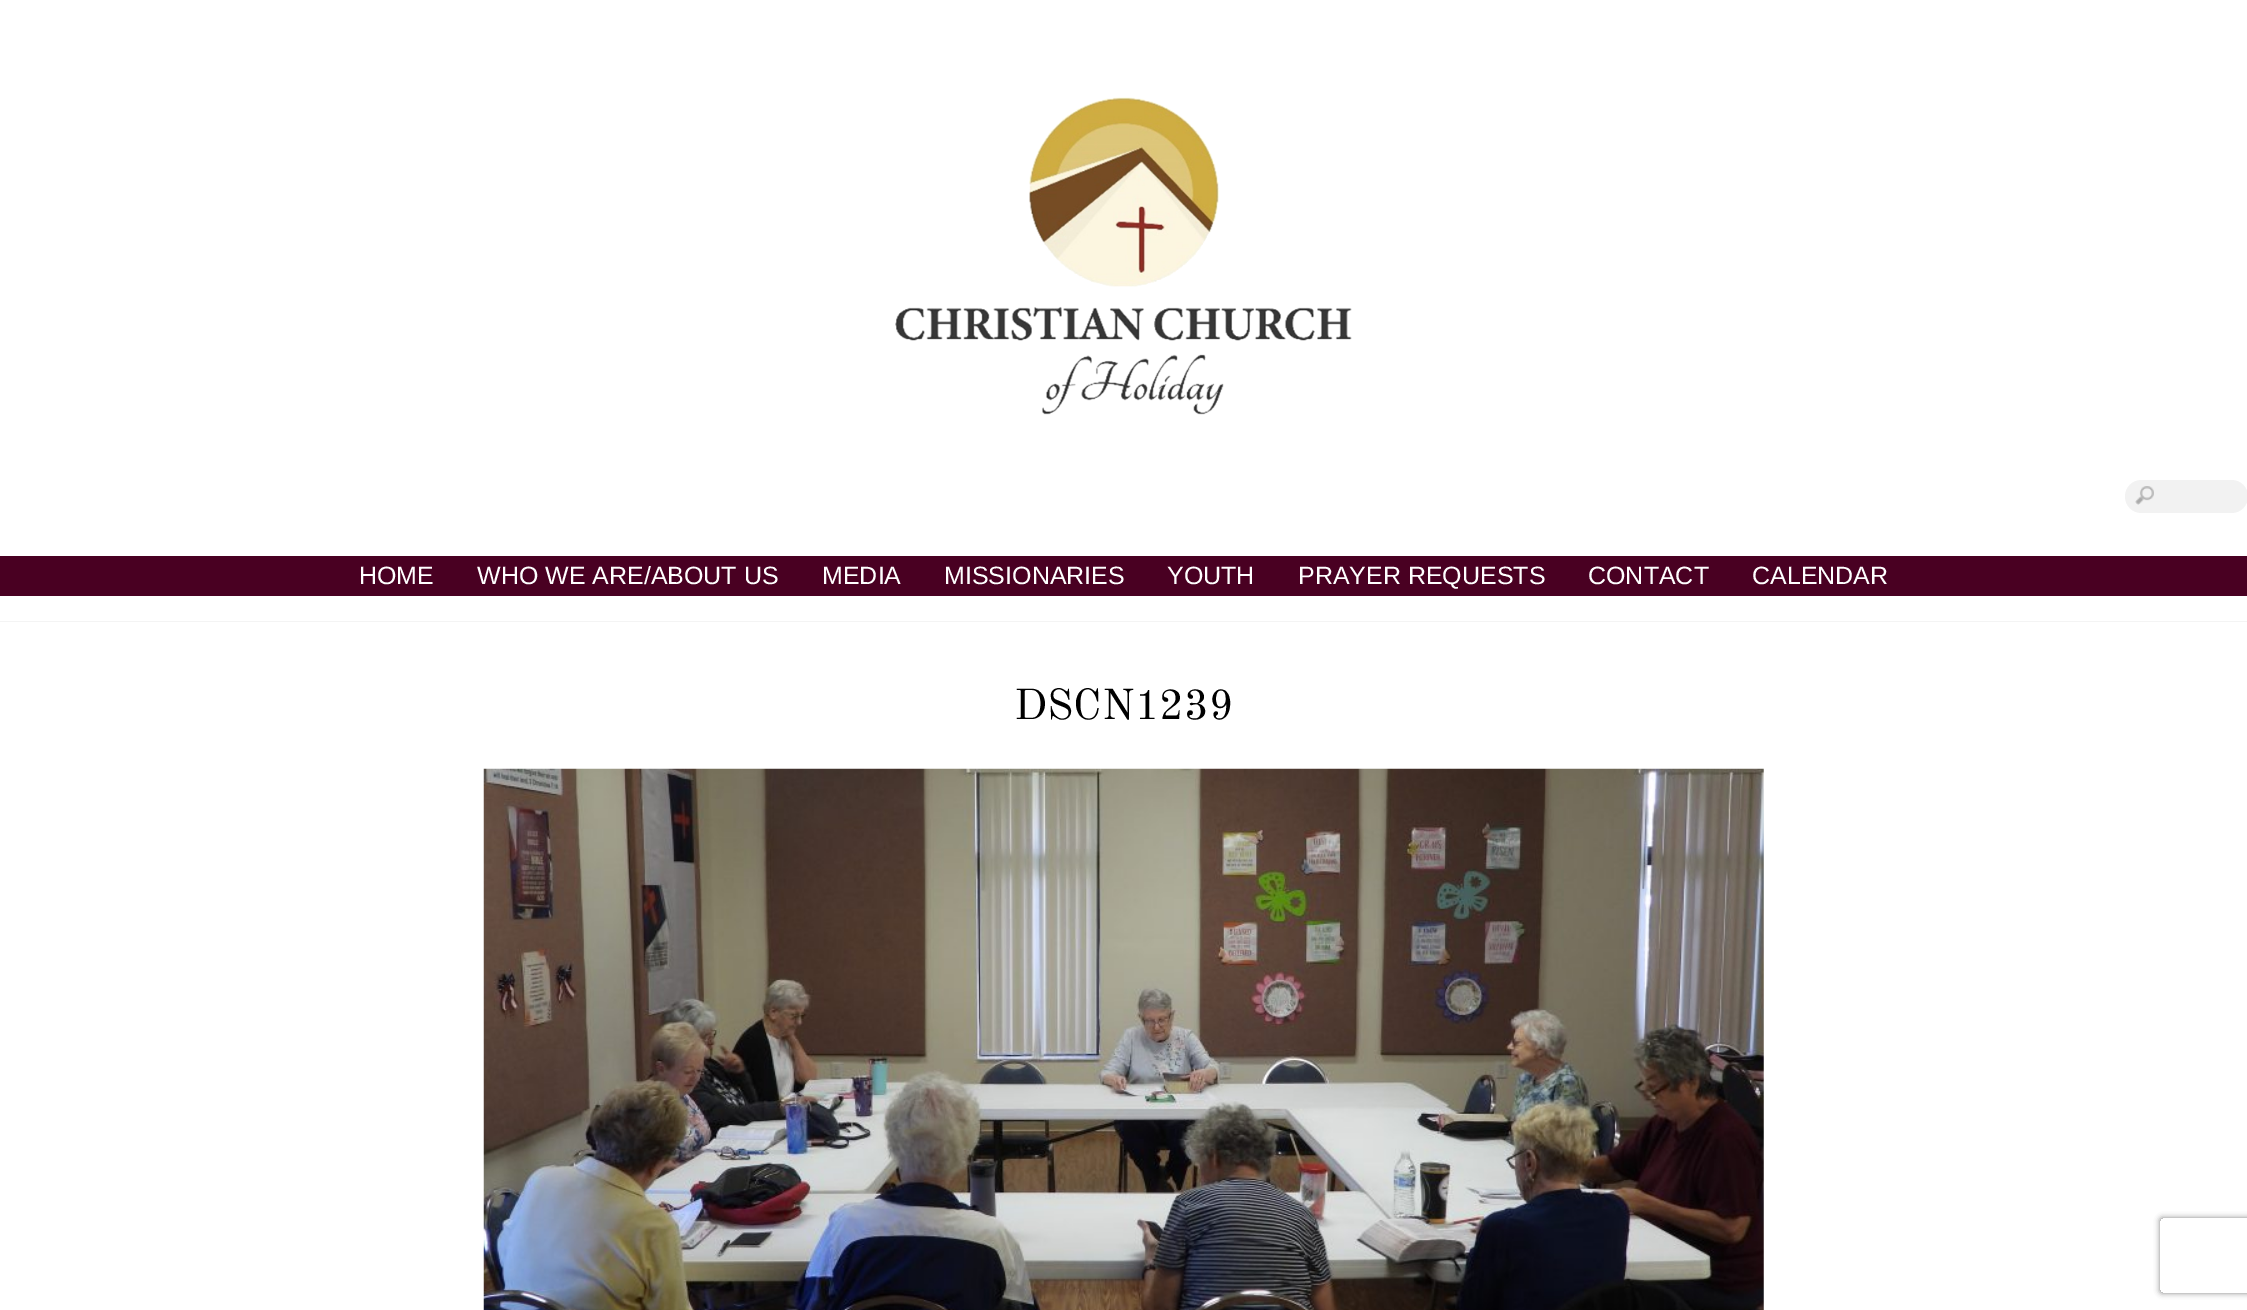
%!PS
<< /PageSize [2247 1310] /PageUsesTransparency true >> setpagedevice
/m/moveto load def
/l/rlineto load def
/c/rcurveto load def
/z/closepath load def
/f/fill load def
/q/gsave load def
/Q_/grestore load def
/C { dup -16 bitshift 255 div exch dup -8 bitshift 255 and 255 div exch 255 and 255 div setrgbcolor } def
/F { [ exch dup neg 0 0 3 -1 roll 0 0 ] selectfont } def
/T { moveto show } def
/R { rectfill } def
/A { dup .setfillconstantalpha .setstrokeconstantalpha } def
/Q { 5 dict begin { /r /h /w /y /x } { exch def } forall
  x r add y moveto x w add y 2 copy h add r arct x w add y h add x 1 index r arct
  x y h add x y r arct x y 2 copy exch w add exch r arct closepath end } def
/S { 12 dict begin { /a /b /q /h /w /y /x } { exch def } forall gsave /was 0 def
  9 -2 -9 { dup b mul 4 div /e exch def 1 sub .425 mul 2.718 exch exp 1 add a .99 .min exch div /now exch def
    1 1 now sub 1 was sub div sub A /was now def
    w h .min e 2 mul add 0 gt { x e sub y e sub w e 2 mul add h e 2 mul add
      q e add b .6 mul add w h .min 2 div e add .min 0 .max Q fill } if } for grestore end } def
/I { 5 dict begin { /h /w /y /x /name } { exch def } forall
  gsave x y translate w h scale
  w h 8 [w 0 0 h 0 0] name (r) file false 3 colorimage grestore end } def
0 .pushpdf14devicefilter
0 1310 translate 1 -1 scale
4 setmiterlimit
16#FFFFFF C
0 0 2247 1310 R
16#F4F4F4 C
0 621 2247 1 R
(1.rgb) 895 97 457 318 I
16#F2F2F2 C
2125 480 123 33 16.5 Q f
(2.rgb) 2135 486 19 19 I
16#490022 C
0 556 2247 40 R
/LiberationSans-Regular 25 F
16#FFFFFF C
(HOME) 359 584 T
(WHO WE ARE/ABOUT US) 477 584 T
(MEDIA) 822 584 T
(MISSIONARIES) 944 584 T
(YOUTH) 1167 584 T
(PRAYER REQUESTS) 1298 584 T
(CONTACT) 1588 584 T
(CALENDAR) 1752 584 T
/OldStandardTT-Regular 42.5 F
16#000000 C
(DSCN1239) 1014 719 T
(3.rgb) 483 768 1281 542 I
q
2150 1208 m 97 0 l 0 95 l -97 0 l z 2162.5 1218 m 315 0 l 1.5 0 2.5 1 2.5 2.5 c 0 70 l 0 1.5 -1 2.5 -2.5 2.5 c -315 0 l -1.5 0 -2.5 -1 -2.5 -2.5 c 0 -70 l 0 -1.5 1 -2.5 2.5 -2.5 c z eoclip newpath
16#808080 C
2160 1218 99 75 2.5 3 1 S
Q_
.poppdf14devicefilter showpage
